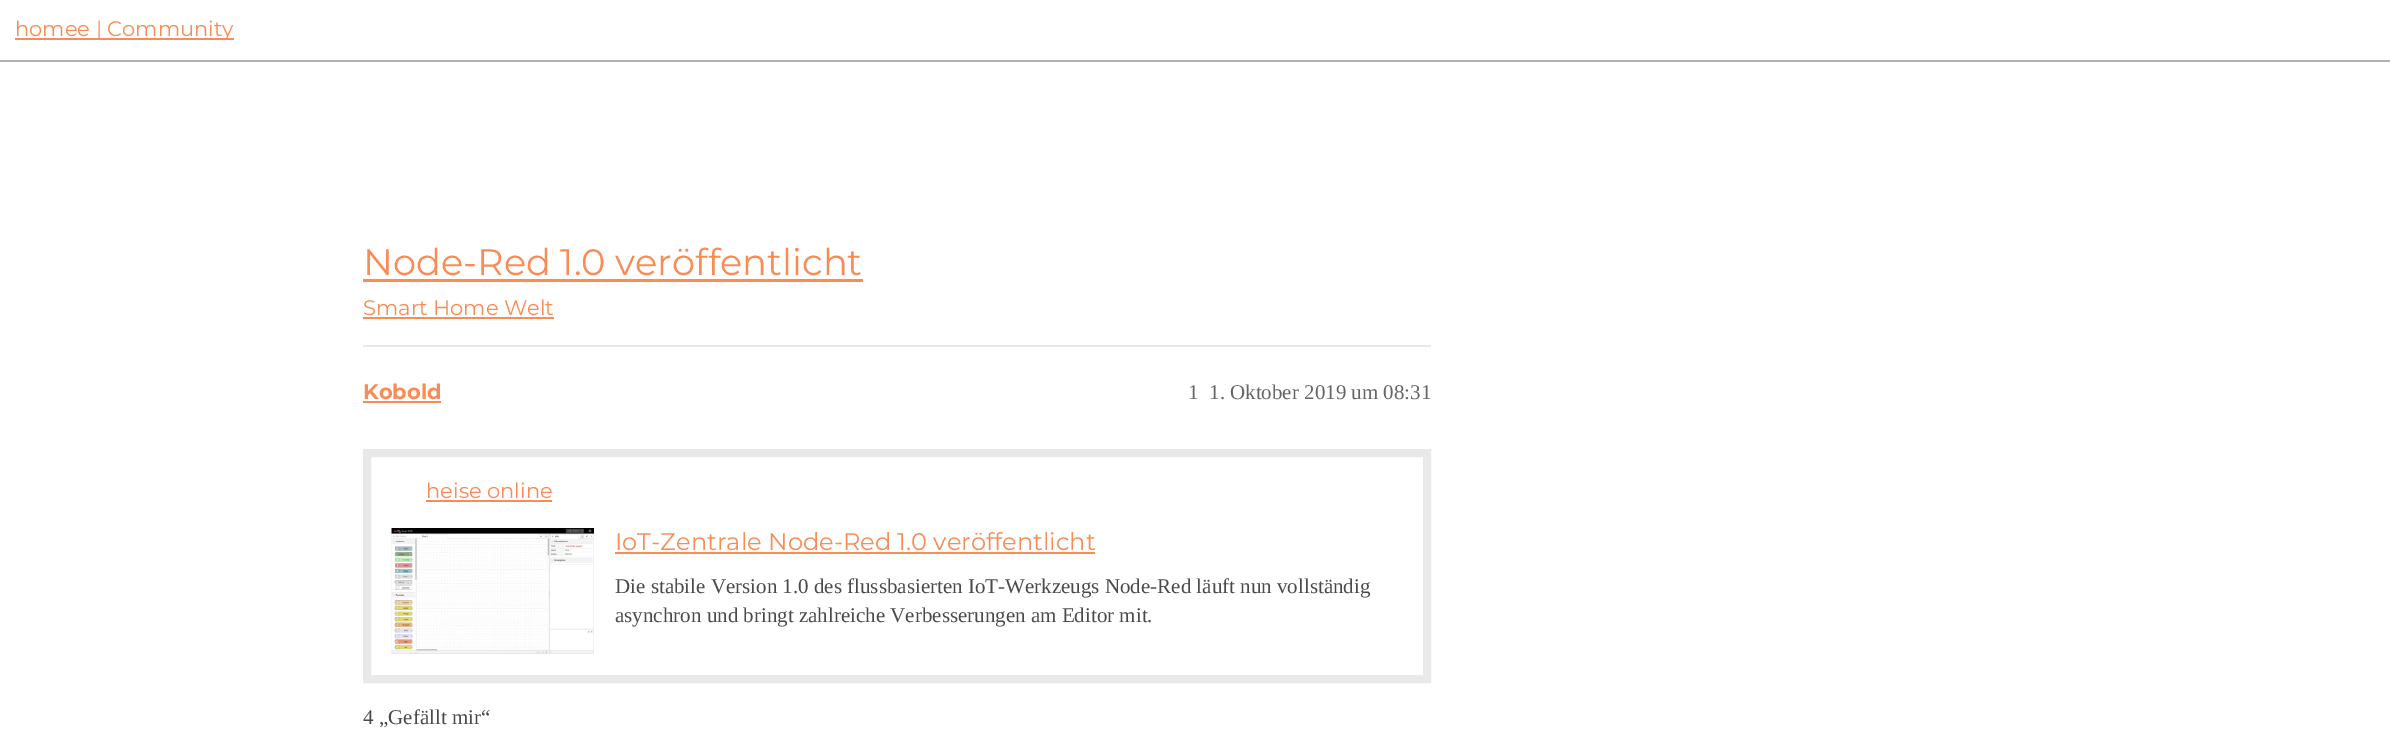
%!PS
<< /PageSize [2390 750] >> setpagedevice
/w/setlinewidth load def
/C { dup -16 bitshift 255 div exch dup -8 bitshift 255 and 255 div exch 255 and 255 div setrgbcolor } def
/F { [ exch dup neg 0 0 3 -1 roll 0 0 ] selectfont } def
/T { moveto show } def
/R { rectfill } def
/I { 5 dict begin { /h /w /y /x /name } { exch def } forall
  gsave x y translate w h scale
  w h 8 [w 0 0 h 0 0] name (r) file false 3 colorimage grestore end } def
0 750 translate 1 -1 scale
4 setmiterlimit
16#FFFFFF C
0 0 2390 750 R
16#B0B0B0 C
0 60 2390 2 R
16#FA8B54 C
15 38 219 2 R
/Montserrat-Regular 21 F
(homee | Community) 15 36 T
/Montserrat-Regular 36.75 F
(Node-Red 1.0 veröffentlicht) 363 275 T
363 279 500 3 R
/Montserrat-Regular 21 F
(Smart Home Welt) 363 315 T
363 317 191 2 R
16#E9E9E9 C
363 345 1068 2 R
/Montserrat-Bold 21 F
16#FA8B54 C
(Kobold) 363 399 T
363 401 78 2 R
/LiberationSerif-Regular 21 F
16#666666 C
(1) 1188 399 T
(1. Oktober 2019 um 08:31) 1209 399 T
16#E9E9E9 C
8 w
367 453 1060 226 rectstroke
/Montserrat-Regular 21 F
16#FA8B54 C
(heise online) 426 498 T
426 500 126 2 R
(1.rgb) 391 528 203 126 I
/Montserrat-Regular 24.1 F
(IoT-Zentrale Node-Red 1.0 veröffentlicht) 615 550 T
615 552 480 2 R
/LiberationSerif-Regular 21 F
16#4A4A4A C
(Die stabile Version 1.0 des flussbasierten IoT-Werkzeugs Node-Red läuft nun vollständig) 615 593 T
(asynchron und bringt zahlreiche Verbesserungen am Editor mit.) 615 622 T
(4 „Gefällt mir“) 363 724 T
showpage
